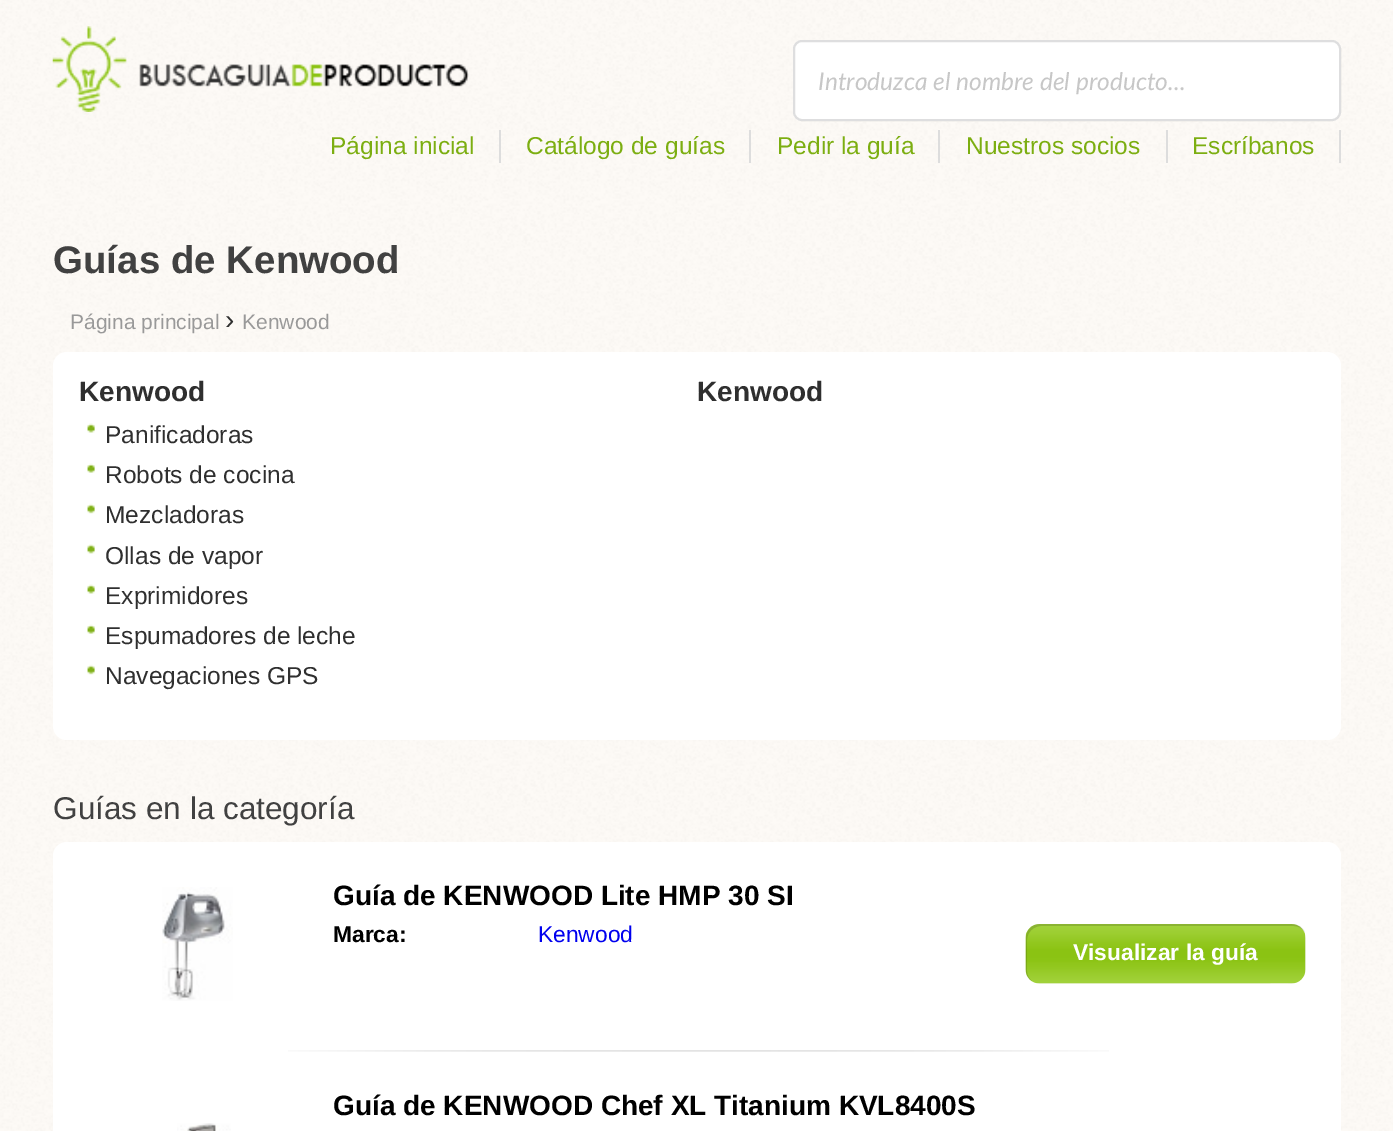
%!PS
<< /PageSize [1393 1131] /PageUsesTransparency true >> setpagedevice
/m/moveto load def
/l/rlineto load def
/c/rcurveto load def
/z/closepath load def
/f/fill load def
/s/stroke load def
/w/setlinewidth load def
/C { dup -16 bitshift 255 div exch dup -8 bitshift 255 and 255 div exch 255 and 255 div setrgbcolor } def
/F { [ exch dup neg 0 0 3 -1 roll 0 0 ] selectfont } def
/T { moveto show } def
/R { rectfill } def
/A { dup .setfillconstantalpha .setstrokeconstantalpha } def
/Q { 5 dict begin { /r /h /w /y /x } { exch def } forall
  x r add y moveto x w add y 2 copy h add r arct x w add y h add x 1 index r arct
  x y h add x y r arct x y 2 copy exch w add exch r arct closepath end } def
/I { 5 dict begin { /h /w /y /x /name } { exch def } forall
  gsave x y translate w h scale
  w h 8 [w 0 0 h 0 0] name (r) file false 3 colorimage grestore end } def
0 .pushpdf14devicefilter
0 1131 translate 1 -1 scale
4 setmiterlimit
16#FFFFFF C
0 0 1393 1131 R
(1.rgb) 0 0 1393 1131 I
(2.rgb) 52 26 417 86 I
793 40 548 81 9 Q f
0.15 A
16#222426 C
2 w
794 41 546 79 8 Q s
/Lato-Italic 24.5 F
1 A
16#C7C7C7 C
(Introduzca el nombre del producto...) 818 90 T
16#DDDDDD C
499 130 2 33 R
/LiberationSans-Regular 24.5 F
16#7CAE11 C
(Página inicial) 330 154 T
16#DDDDDD C
749 130 2 33 R
16#7CAE11 C
(Catálogo de guías) 526 154 T
16#DDDDDD C
938 130 2 33 R
16#7CAE11 C
(Pedir la guía) 777 154 T
16#DDDDDD C
1166 130 2 33 R
16#7CAE11 C
(Nuestros socios) 966 154 T
16#DDDDDD C
1339 130 2 33 R
16#7CAE11 C
(Escríbanos) 1192 154 T
/LiberationSans-Bold 38.5 F
16#414141 C
(Guías de Kenwood) 53 273 T
/LiberationSans-Regular 21 F
16#999999 C
(Página principal) 70 329 T
/LiberationSans-Regular 28 F
16#2F2F2F C
(›) 225 329 T
/LiberationSans-Regular 21 F
16#999999 C
(Kenwood) 242 329 T
16#FFFFFF C
53 352 1288 388 14 Q f
/LiberationSans-Bold 28 F
16#2F2F2F C
(Kenwood) 79 401 T
(3.rgb) 87 423 8 10 I
/LiberationSans-Regular 24.5 F
(Panificadoras) 105 443 T
(4.rgb) 87 463 8 10 I
(Robots de cocina) 105 483 T
(5.rgb) 87 503 8 11 I
(Mezcladoras) 105 523 T
(6.rgb) 87 544 8 10 I
(Ollas de vapor) 105 564 T
(3.rgb) 87 584 8 10 I
(Exprimidores) 105 604 T
(4.rgb) 87 624 8 10 I
(Espumadores de leche) 105 644 T
(5.rgb) 87 664 8 11 I
(Navegaciones GPS) 105 684 T
/LiberationSans-Bold 28 F
(Kenwood) 697 401 T
/LiberationSans-Regular 31.5 F
16#414141 C
(Guías en la categoría) 53 819 T
16#FFFFFF C
53 842 1288 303 14 Q f
(7.rgb) 288 1050 821 2 I
(8.rgb) 162 887 71 114 I
/LiberationSans-Bold 28 F
16#000000 C
(Guía de KENWOOD Lite HMP 30 SI) 333 905 T
/LiberationSans-Bold 22.75 F
(Marca:) 333 942 T
/LiberationSans-Regular 22.75 F
16#0000EE C
(Kenwood) 538 942 T
(9.rgb) 1025 924 281 60 I
0.14 A
16#000000 C
1041 926 m 252 0 l 5 0 9 2 12 6 c -3 -5 -7 -8 -13 -8 c -252 0 l -8 0 -14 6 -14 14 c 0 32 l 0 5 2 9 6 11 c -3 -2 -5 -6 -5 -10 c 0 -31 l 0 -8 7 -14 14 -14 c z f
/LiberationSans-Bold 22.75 F
1 A
16#FFFFFF C
(Visualizar la guía) 1073 960 T
/LiberationSans-Bold 28 F
16#000000 C
(Guía de KENWOOD Chef XL Titanium KVL8400S) 333 1115 T
(10.rgb) 177 1123 54 8 I
.poppdf14devicefilter showpage
